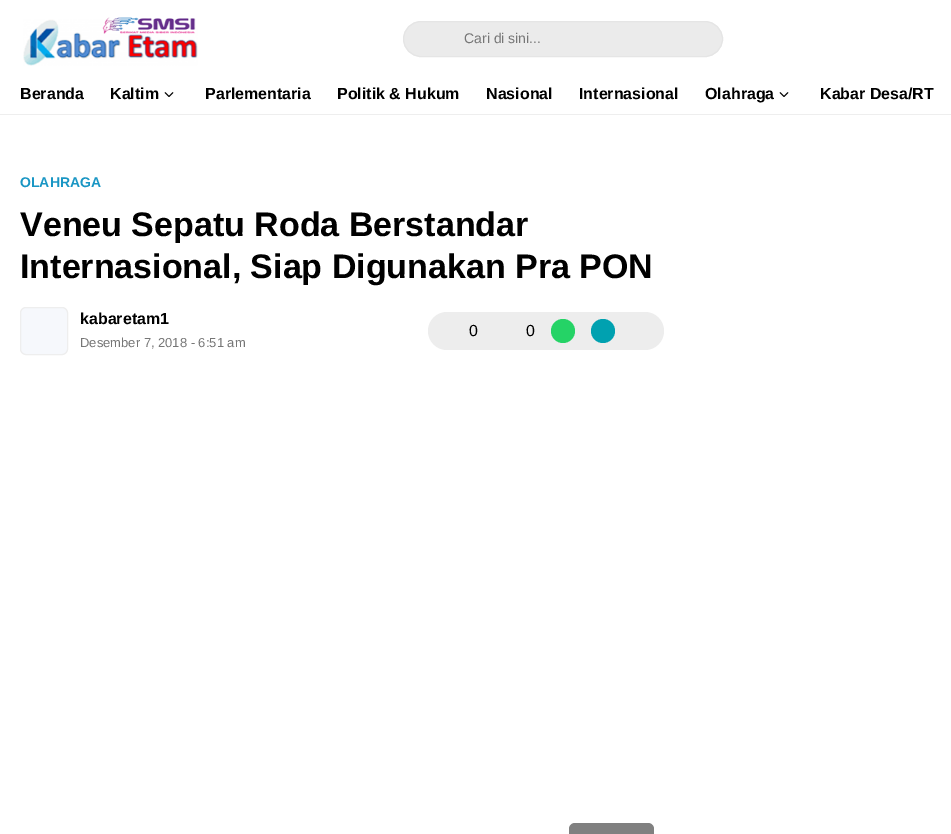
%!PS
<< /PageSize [951 834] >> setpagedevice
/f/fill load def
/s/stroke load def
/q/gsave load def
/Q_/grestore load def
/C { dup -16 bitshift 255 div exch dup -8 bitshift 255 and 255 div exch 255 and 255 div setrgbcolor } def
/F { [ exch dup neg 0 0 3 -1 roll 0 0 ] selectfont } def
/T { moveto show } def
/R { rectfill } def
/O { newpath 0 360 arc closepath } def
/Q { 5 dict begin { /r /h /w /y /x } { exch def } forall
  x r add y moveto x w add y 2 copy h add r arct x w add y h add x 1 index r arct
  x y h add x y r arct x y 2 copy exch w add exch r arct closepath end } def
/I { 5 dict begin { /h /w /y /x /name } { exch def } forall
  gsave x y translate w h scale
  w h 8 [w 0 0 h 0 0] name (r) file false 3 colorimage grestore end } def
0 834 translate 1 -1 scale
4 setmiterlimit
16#FFFFFF C
0 0 951 834 R
16#EEEEEE C
0 114 951 1 R
(1.rgb) 23 17 175 49 I
16#EBEBEB C
403.5 21.5 319 35 17.5 Q q f Q_
16#E5E5E5 C
s
/LiberationSans-Regular 14 F
16#767676 C
(Cari di sini...) 464 43 T
/LiberationSans-Bold 16 F
16#000000 C
(Beranda) 20 99 T
(Kaltim) 110 99 T
(2.rgb) 164 92 10 5 I
(Parlementaria) 205 99 T
(Politik & Hukum) 337 99 T
(Nasional) 486 99 T
(Internasional) 579 99 T
(Olahraga) 705 99 T
(2.rgb) 779 92 10 5 I
(Kabar Desa/RT) 820 99 T
/LiberationSans-Bold 14 F
16#1996C4 C
(OLAHRAGA) 20 187 T
/LiberationSans-Bold 34 F
16#000000 C
(Veneu Sepatu Roda Berstandar) 20 236 T
(Internasional, Siap Digunakan Pra PON) 20 278 T
16#F6F8FC C
20.5 307.5 47 47 5.5 Q q f Q_
16#EEEEEE C
s
/LiberationSans-Bold 16 F
16#000000 C
(kabaretam1) 80 324 T
/LiberationSans-Regular 13 F
16#767676 C
(Desember 7, 2018 - 6:51 am) 80 347 T
16#EDEDED C
428 312 236 38 19 Q f
/LiberationSans-Regular 16 F
16#000000 C
(0) 469 336 T
(0) 526 336 T
16#25D366 C
563 331 12 O f
16#00A1B0 C
603 331 12 O f
16#808080 C
569 823 85 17 6 Q f
showpage
